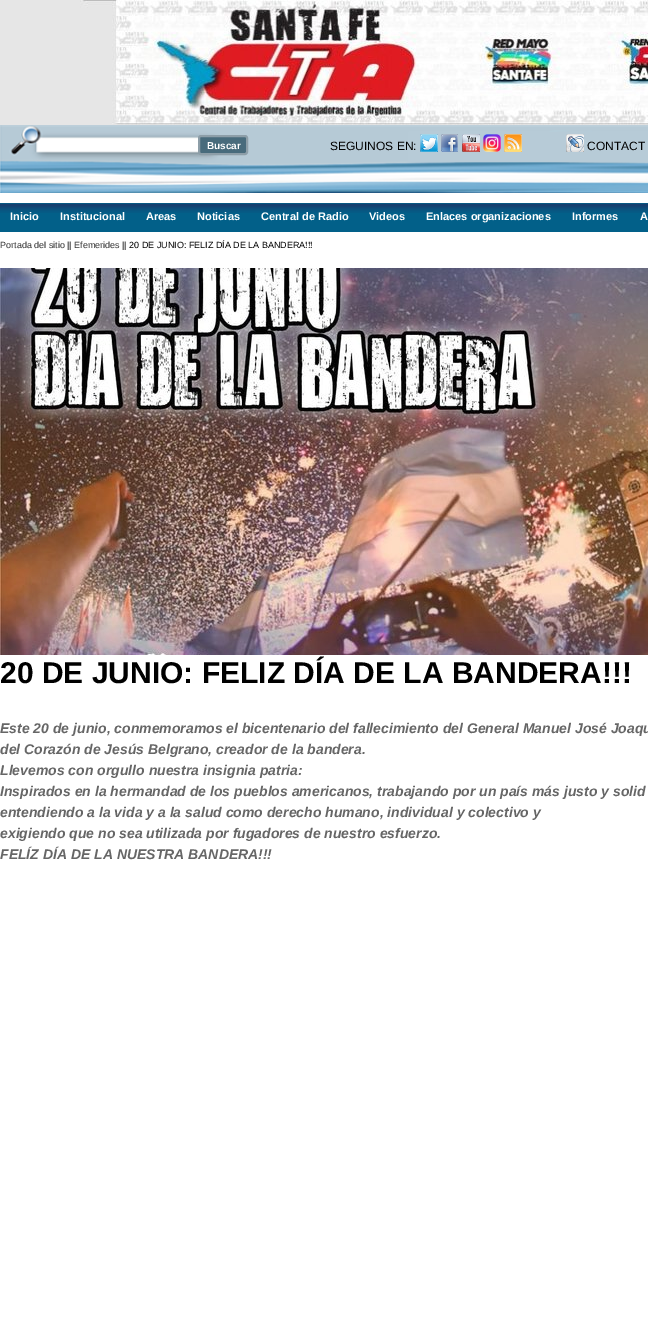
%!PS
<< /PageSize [648 1324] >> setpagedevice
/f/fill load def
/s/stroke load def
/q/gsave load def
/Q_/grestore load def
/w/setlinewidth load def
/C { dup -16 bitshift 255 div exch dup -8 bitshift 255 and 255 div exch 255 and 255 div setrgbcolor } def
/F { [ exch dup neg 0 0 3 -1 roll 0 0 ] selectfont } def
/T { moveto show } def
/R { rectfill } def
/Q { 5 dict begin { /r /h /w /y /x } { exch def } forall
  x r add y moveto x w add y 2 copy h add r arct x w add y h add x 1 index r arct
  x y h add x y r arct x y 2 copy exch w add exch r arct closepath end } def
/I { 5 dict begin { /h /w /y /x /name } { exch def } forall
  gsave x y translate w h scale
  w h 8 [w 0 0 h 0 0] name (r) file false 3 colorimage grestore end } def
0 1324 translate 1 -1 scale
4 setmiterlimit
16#FFFFFF C
0 0 648 1324 R
(1.rgb) 0 0 648 125 I
(2.rgb) 0 125 648 68 I
16#486B7C C
199 136 48 18 2 Q q f Q_
16#8D9EA8 C
2 w
s
/LiberationSans-Bold 10 F
16#FFFFFF C
(Buscar) 207 149 T
/LiberationSans-Regular 12 F
16#000000 C
(SEGUINOS EN:) 330 150 T
(3.rgb) 420 134 18 18 I
(4.rgb) 441 134 17 18 I
(5.rgb) 462 134 18 18 I
(6.rgb) 483 134 18 18 I
(7.rgb) 504 134 18 18 I
(8.rgb) 566 134 18 18 I
(CONTACT) 587 150 T
16#026089 C
0 203 648 29 R
(9.rgb) 0 203 648 10 I
/LiberationSans-Bold 11 F
16#FFFFFF C
(Inicio) 10 220 T
(Institucional) 60 220 T
(Areas) 146 220 T
(Noticias) 197 220 T
(Central de Radio) 261 220 T
(Videos) 369 220 T
(Enlaces organizaciones) 426 220 T
(Informes) 572 220 T
(A) 640 220 T
/LiberationSans-Regular 9 F
16#333333 C
(Portada del sitio) 0 248 T
16#000000 C
(||) 67 248 T
16#333333 C
(Efemerides) 74 248 T
16#000000 C
(|| 20 DE JUNIO: FELIZ DÍA DE LA BANDERA!!!) 122 248 T
(10.rgb) 0 268 648 387 I
/LiberationSans-Bold 30 F
(20 DE JUNIO: FELIZ DÍA DE LA BANDERA!!!) 0 683 T
/LiberationSans-BoldItalic 14 F
16#666666 C
(Este 20 de junio, conmemoramos el bicentenario del fallecimiento del General Manuel José Joaqu) 0 733 T
(del Corazón de Jesús Belgrano, creador de la bandera.) 0 754 T
(Llevemos con orgullo nuestra insignia patria:) 0 775 T
(Inspirados en la hermandad de los pueblos americanos, trabajando por un país más justo y solid) 0 796 T
(entendiendo a la vida y a la salud como derecho humano, individual y colectivo y) 0 817 T
(exigiendo que no sea utilizada por fugadores de nuestro esfuerzo.) 0 838 T
(FELÍZ DÍA DE LA NUESTRA BANDERA!!!) 0 859 T
showpage
